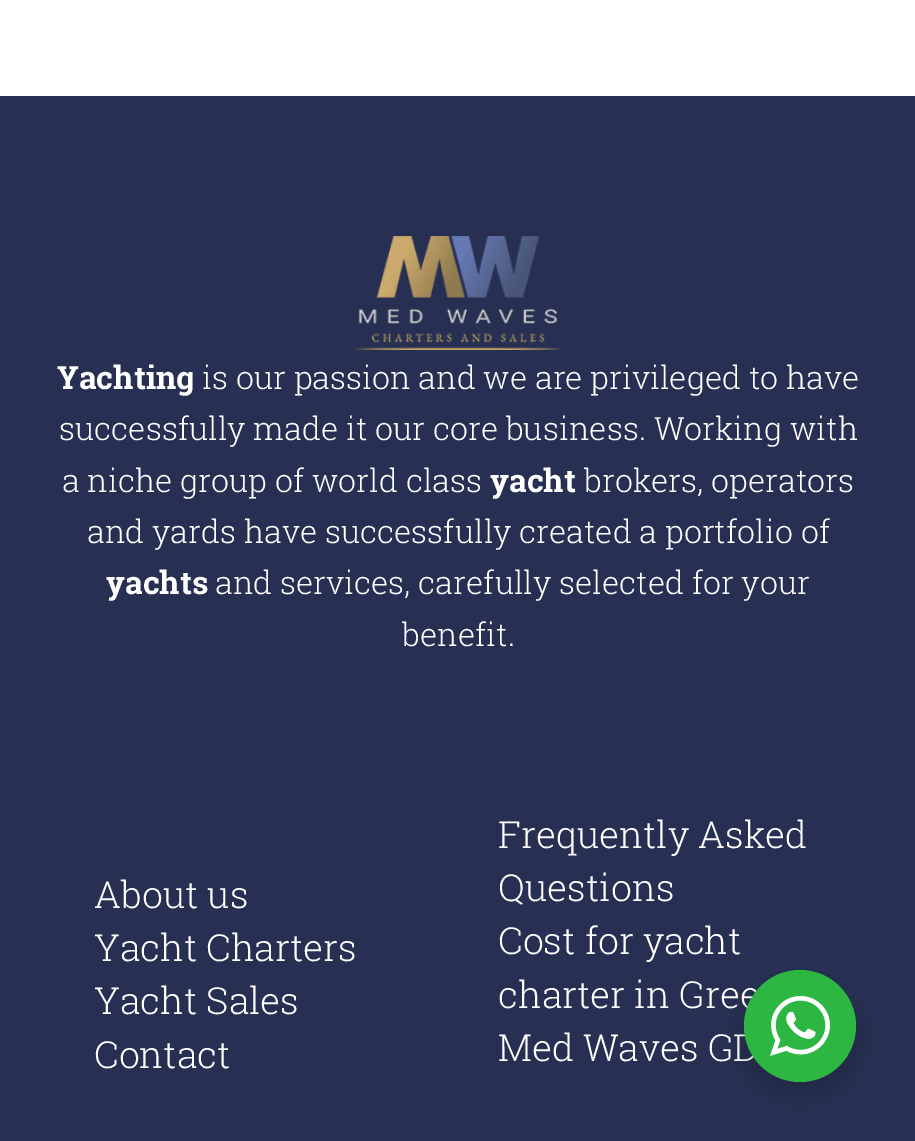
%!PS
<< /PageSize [915 1141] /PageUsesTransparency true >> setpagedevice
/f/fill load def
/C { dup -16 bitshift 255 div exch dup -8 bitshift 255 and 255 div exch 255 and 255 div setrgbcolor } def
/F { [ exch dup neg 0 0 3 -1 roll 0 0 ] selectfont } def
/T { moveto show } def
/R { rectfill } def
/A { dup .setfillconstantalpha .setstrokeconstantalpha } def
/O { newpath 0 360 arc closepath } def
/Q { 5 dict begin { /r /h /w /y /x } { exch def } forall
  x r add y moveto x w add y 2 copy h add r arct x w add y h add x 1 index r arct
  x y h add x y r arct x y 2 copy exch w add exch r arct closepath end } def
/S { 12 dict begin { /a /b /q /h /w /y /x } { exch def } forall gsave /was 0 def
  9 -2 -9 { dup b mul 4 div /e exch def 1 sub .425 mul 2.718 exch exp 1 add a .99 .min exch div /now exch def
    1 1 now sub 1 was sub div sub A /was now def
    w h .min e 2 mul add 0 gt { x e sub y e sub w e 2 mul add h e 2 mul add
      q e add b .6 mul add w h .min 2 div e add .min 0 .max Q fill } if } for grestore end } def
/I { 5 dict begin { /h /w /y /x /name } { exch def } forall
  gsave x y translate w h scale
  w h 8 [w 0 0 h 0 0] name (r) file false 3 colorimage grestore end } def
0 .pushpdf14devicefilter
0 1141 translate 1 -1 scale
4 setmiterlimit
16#FFFFFF C
0 0 915 1141 R
16#273052 C
0 96 915 1045 R
(1.rgb) 356 236 204 114 I
/RobotoSlab-Bold 32 F
16#FFFFFF C
(Yachting) 57 389 T
/RobotoSlab-Light 32 F
(is our passion and we are privileged to have) 202 389 T
(successfully made it our core business. Working with) 59 440 T
(a niche group of world class) 62 492 T
/RobotoSlab-Bold 32 F
(yacht) 490 492 T
/RobotoSlab-Light 32 F
(brokers, operators) 584 492 T
(and yards have successfully created a portfolio of) 87 543 T
/RobotoSlab-Bold 32 F
(yachts) 106 594 T
/RobotoSlab-Light 32 F
(and services, carefully selected for your) 215 594 T
(benefit.) 402 646 T
/RobotoSlab-Light 37.25 F
(About us) 94 908 T
(Yacht Charters) 94 961 T
(Yacht Sales) 94 1014 T
(Contact) 94 1068 T
(Frequently Asked) 498 848 T
(Questions) 498 901 T
(Cost for yacht) 498 954 T
(charter in Gree) 498 1008 T
(Med Waves GD) 498 1061 T
16#000000 C
740 978 120 120 60 8 .14 S
16#2DB742 C
800 1026 56 O f
(2.rgb) 770 996 60 60 I
.poppdf14devicefilter showpage
